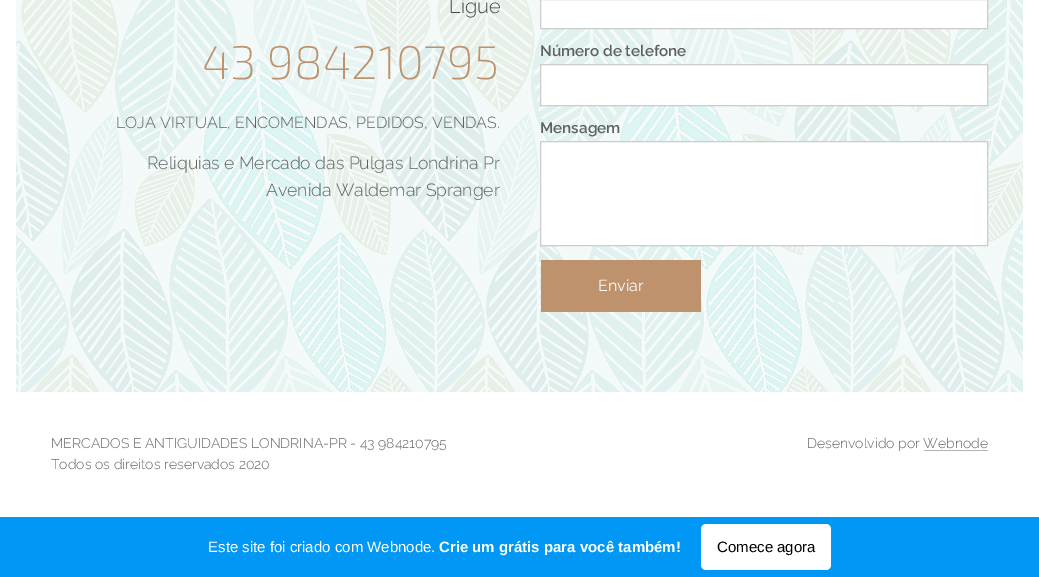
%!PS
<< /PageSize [1039 577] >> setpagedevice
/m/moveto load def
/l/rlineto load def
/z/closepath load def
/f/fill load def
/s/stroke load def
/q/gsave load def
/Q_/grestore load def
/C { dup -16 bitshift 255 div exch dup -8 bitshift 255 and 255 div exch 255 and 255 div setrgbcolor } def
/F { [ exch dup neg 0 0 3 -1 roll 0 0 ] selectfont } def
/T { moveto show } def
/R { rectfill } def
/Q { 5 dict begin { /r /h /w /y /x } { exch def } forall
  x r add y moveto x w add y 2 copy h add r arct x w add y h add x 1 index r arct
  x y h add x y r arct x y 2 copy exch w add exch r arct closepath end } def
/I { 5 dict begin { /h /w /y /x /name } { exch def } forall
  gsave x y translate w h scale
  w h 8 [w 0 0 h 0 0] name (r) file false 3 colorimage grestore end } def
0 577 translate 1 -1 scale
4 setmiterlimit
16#FFFFFF C
0 0 1039 577 R
(1.rgb) 16 0 1007 392 I
/Raleway-Light 20 F
16#474947 C
(Ligue) 449 13 T
/Exo2-ExtraLight 47.25 F
16#BD926D C
(43 984210795) 202 79 T
/Raleway-Light 16 F
16#5D6261 C
(LOJA VIRTUAL, ENCOMENDAS, PEDIDOS, VENDAS.) 116 128 T
/Raleway-Light 17.6 F
(Reliquias e Mercado das Pulgas Londrina Pr) 147 169 T
(Avenida Waldemar Spranger) 266 196 T
16#FFFFFF C
540.5 -.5 m 447 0 l 0 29 l -447 0 l z q f Q_
16#CCCCCC C
s
/Raleway-SemiBold 15.25 F
16#5D6261 C
(Número de telefone) 540 56 T
16#FFFFFF C
540.5 64.5 m 447 0 l 0 41 l -447 0 l z q f Q_
16#CCCCCC C
s
16#5D6261 C
(Mensagem) 540 133 T
16#FFFFFF C
540.5 141.5 m 447 0 l 0 104 l -447 0 l z q f Q_
16#CCCCCC C
s
16#BD926D C
541 260 160 52 R
/Raleway-Regular 16 F
16#FFFFFF C
(Enviar) 598 291 T
/Raleway-Light 14 F
16#666666 C
(MERCADOS E ANTIGUIDADES LONDRINA-PR - 43 984210795) 51 448 T
(Todos os direitos reservados 2020) 51 469 T
(Desenvolvido por Webnode) 807 448 T
16#B3B3B3 C
924 450 64 1 R
16#0097F5 C
0 517 1039 60 R
/LiberationSans-Regular 15 F
16#FFFFFF C
(Este site foi criado com Webnode.) 208 552 T
/LiberationSans-Bold 15 F
(Crie um grátis para você também!) 439 552 T
701 524 130 46 5 Q f
/LiberationSans-Regular 15 F
16#000000 C
(Comece agora) 717 552 T
showpage
